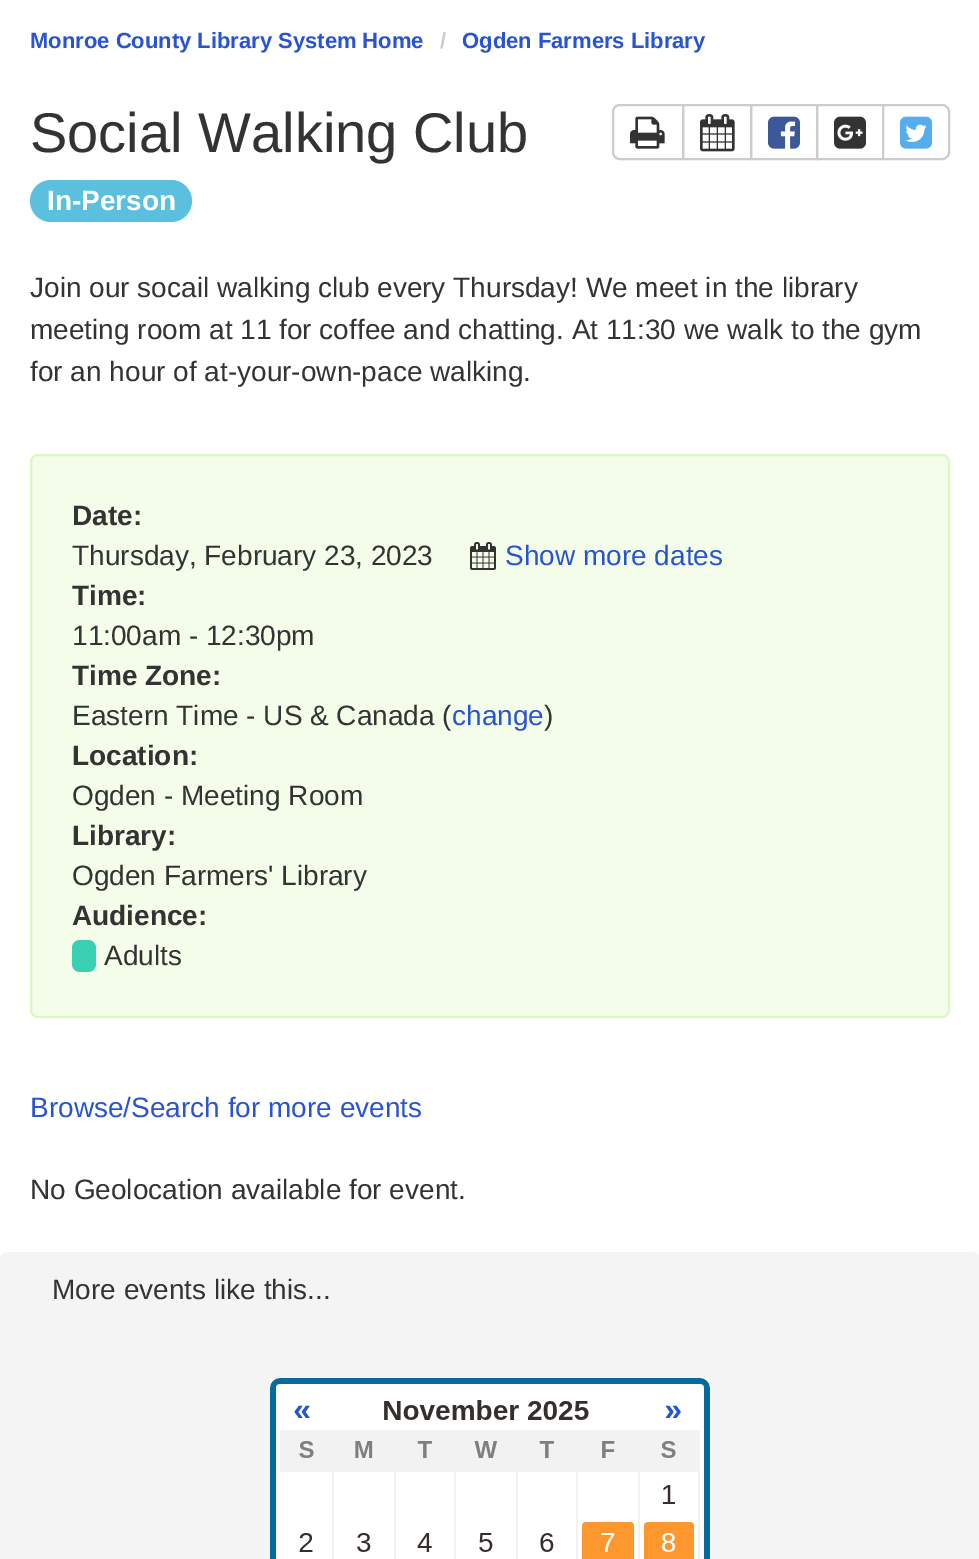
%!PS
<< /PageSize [979 1559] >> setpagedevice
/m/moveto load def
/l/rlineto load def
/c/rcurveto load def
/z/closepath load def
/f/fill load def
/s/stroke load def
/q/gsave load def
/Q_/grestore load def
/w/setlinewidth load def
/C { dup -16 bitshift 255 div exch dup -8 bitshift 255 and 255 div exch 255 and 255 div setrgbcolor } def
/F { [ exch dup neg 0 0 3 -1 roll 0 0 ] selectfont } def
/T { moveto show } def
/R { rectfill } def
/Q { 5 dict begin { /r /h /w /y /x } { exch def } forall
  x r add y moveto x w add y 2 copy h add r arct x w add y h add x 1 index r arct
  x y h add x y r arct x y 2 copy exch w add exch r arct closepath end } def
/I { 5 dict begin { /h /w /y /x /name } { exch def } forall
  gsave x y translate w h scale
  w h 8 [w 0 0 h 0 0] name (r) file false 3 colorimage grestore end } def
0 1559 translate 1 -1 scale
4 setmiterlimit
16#FFFFFF C
0 0 979 1559 R
/LiberationSans-Bold 22 F
16#2954D1 C
(Monroe County Library System Home) 30 48 T
16#CCCCCC C
(/) 440 48 T
16#2954D1 C
(Ogden Farmers Library) 462 48 T
/LiberationSans-Regular 56 F
16#333333 C
(Social Walking Club) 30 152 T
16#5BC0DE C
30 180 162 42 21 Q f
/LiberationSans-Bold 28 F
16#FFFFFF C
(In-Person) 47 210 T
16#CCCCCC C
2 w
620 105 m 63 0 l 0 54 l -63 0 l -4 0 -7 -3 -7 -7 c 0 -40 l 0 -4 3 -7 7 -7 c z s
(1.rgb) 630 116 35 33 I
683 105 68 54 rectstroke
(2.rgb) 700 114 35 38 I
751 105 66 54 rectstroke
(3.rgb) 768 116 32 33 I
817 105 66 54 rectstroke
(4.rgb) 834 116 32 33 I
16#FFFFFF C
883 105 m 59 0 l 4 0 7 3 7 7 c 0 40 l 0 4 -3 7 -7 7 c -59 0 l z q f Q_
16#CCCCCC C
s
(5.rgb) 900 116 32 33 I
/LiberationSans-Regular 28 F
16#333333 C
(Join our socail walking club every Thursday! We meet in the library) 30 297 T
(meeting room at 11 for coffee and chatting. At 11:30 we walk to the gym) 30 339 T
(for an hour of at-your-own-pace walking.) 30 381 T
16#F3FDEA C
31 455 918 562 7 Q q f Q_
16#DAF9C2 C
s
/LiberationSans-Bold 28 F
16#333333 C
(Date:) 72 525 T
/LiberationSans-Regular 28 F
(Thursday, February 23, 2023) 72 565 T
(6.rgb) 470 542 26 28 I
16#2954D1 C
(Show more dates) 505 565 T
/LiberationSans-Bold 28 F
16#333333 C
(Time:) 72 605 T
/LiberationSans-Regular 28 F
(11:00am - 12:30pm) 72 645 T
/LiberationSans-Bold 28 F
(Time Zone:) 72 685 T
/LiberationSans-Regular 28 F
(Eastern Time - US & Canada \() 72 725 T
16#2954D1 C
(change) 452 725 T
16#333333 C
(\)) 544 725 T
/LiberationSans-Bold 28 F
(Location:) 72 765 T
/LiberationSans-Regular 28 F
(Ogden - Meeting Room) 72 805 T
/LiberationSans-Bold 28 F
(Library:) 72 845 T
/LiberationSans-Regular 28 F
(Ogden Farmers' Library) 72 885 T
/LiberationSans-Bold 28 F
(Audience:) 72 925 T
16#3AD1B3 C
72 940 24 32 8 Q f
/LiberationSans-Regular 28 F
16#333333 C
(Adults) 104 965 T
16#2954D1 C
(Browse/Search for more events) 30 1117 T
16#333333 C
(No Geolocation available for event.) 30 1199 T
16#F4F4F4 C
0 1252 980 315 8 Q f
16#333333 C
(More events like this...) 52 1299 T
(7.rgb) 270 1378 440 181 I
showpage
